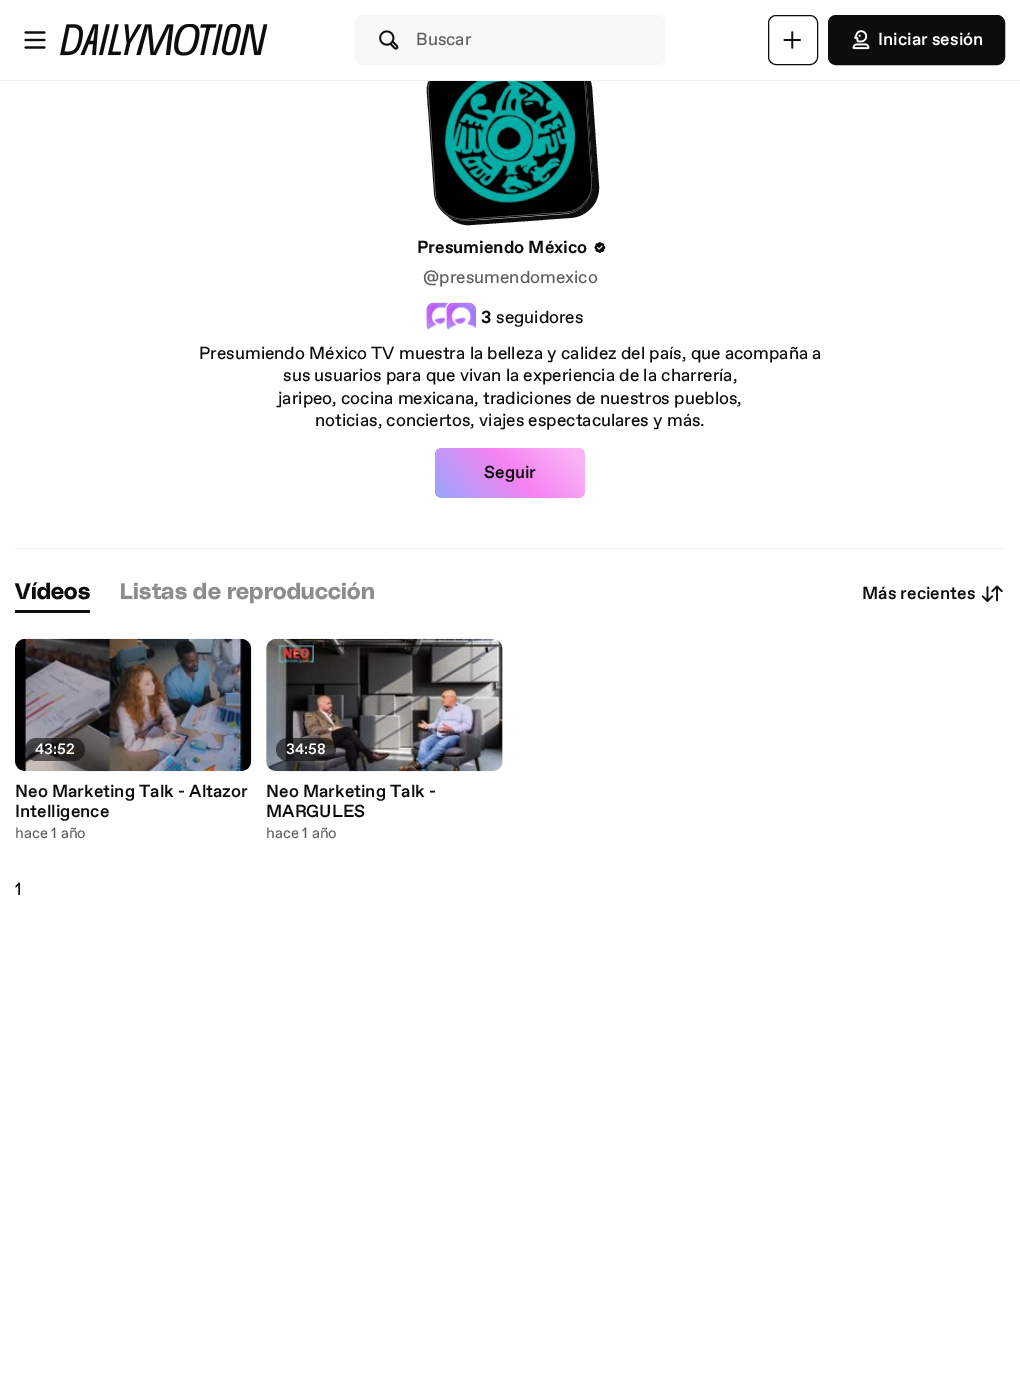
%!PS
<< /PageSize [1020 1384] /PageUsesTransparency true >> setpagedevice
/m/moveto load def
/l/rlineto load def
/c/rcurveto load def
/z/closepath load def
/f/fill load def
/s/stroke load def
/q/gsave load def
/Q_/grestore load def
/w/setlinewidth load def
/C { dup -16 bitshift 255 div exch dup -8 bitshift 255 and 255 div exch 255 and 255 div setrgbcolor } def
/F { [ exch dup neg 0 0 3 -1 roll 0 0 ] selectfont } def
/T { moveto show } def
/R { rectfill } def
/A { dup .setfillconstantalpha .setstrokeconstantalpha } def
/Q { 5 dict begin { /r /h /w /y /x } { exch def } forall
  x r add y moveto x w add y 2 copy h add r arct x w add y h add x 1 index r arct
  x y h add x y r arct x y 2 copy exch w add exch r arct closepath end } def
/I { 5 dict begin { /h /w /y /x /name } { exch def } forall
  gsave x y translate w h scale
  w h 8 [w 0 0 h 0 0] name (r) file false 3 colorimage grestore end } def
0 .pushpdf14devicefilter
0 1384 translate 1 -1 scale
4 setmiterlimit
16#FFFFFF C
0 0 1020 1384 R
16#0D0D0D C
447 216 m 6 6 15 10 24 9 c 100 -7 l 16 -1 29 -15 28 -32 c -7 -99 l -1 -10 -6 -17 -13 -22 c 4 4 7 10 7 17 c 7 100 l 1 16 -11 31 -28 32 c -99 7 l -7 0 -14 -2 -19 -5 c z f
1.2 w
454.5 62 m 100 -7 l 16 -1.5 30 11 31 27 c 7 100 l 1.5 16 -11 30 -27 31 c -100 7 l -16 1.5 -30 -11 -31 -27 c -7 -100 l -1.5 -16 11 -30 27 -31 c z s
16#FFFFFF C
428 54 163 26 R
16#F0F0F0 C
0 80 1020 1 R
(1.rgb) 24 31 22 18 I
(2.rgb) 60 24 208 32 I
16#F8F8F8 C
355 15 310 50 8 Q f
(3.rgb) 379 30 20 20 I
/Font-Regular 17.5 F
16#606060 C
(Buscar) 416 45 T
16#0D0D0D C
1 w
768.5 15.5 49 49 7.5 Q s
(4.rgb) 783 31 18 18 I
828.5 15.5 176 49 7.5 Q q f Q_
s
(5.rgb) 852 30 18 20 I
/Font-Medium 17.5 F
16#FFFFFF C
(Iniciar sesión) 878 45 T
16#F0F0F0 C
15 548 990 1 R
(6.rgb) 428 81 164 139 I
/Font-Bold 17.5 F
16#0D0D0D C
(Presumiendo México) 417 253 T
(7.rgb) 594 242 12 11 I
/Font-Regular 17.5 F
16#606060 C
(@presumendomexico) 423 283 T
(8.rgb) 426 302 25 28 I
16#FFFFFF C
425.5 301.5 32 32 8.5 Q s
(9.rgb) 446 302 31 28 I
445.5 301.5 32 32 8.5 Q s
/Font-Bold 17.5 F
16#0D0D0D C
(3) 481 323 T
/Font-Regular 17.5 F
(seguidores) 496 323 T
(Presumiendo México TV muestra la belleza y calidez del país, que acompaña a) 199 359 T
(sus usuarios para que vivan la experiencia de la charrería,) 283 381 T
(jaripeo, cocina mexicana, tradiciones de nuestros pueblos,) 278 404 T
(noticias, conciertos, viajes espectaculares y más.) 315 426 T
q 435 448 150 50 8 Q clip newpath
<< /ShadingType 2 /ColorSpace /DeviceRGB /Coords [564 424 456 521] /Extend [true true] /Function << /FunctionType 3 /Domain [0 1] /Functions [<< /FunctionType 2 /Domain [0 1] /C0 [.98 .702 .969] /C1 [.98 .702 .969] /N 1 >> << /FunctionType 2 /Domain [0 1] /C0 [.98 .702 .969] /C1 [.965 .51 .949] /N 1 >> << /FunctionType 2 /Domain [0 1] /C0 [.965 .51 .949] /C1 [.635 .635 .984] /N 1 >> << /FunctionType 2 /Domain [0 1] /C0 [.635 .635 .984] /C1 [.635 .635 .984] /N 1 >>] /Bounds [.09 .48 .94] /Encode [0 1 0 1 0 1 0 1] >> >> shfill Q_
/Font-Medium 17.5 F
(Seguir) 484 478 T
15 610 75 3 R
/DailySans-Bold 22.5 F
15 599 m .2 0 (Vídeos) ashow
16#8D8D8D C
120 599 m .2 0 (Listas de reproducción) ashow
/Font-Medium 17.5 F
16#0D0D0D C
(Más recientes) 862 599 T
(10.rgb) 981 585 22 17 I
(11.rgb) 15 638 237 134 I
0.6 A
25 738 60 23 11.5 Q f
/Font-Medium 15 F
1 A
16#FFFFFF C
(43:52) 35 754 T
/Font-Medium 17.5 F
16#0D0D0D C
(Neo Marketing Talk - Altazor) 15 797 T
(Intelligence) 15 817 T
/Font-Regular 15 F
16#606060 C
(hace 1 año) 15 838 T
16#E8E8E8 C
266 639 237 132 10 Q f
(12.rgb) 266 638 237 134 I
0.6 A
16#0D0D0D C
276 738 60 23 11.5 Q f
/Font-Medium 15 F
1 A
16#FFFFFF C
(34:58) 286 754 T
/Font-Medium 17.5 F
16#0D0D0D C
(Neo Marketing Talk -) 266 797 T
(MARGULES) 266 817 T
/Font-Regular 15 F
16#606060 C
(hace 1 año) 266 838 T
/Font-Regular 17.5 F
16#0D0D0D C
(1) 15 895 T
.poppdf14devicefilter showpage
